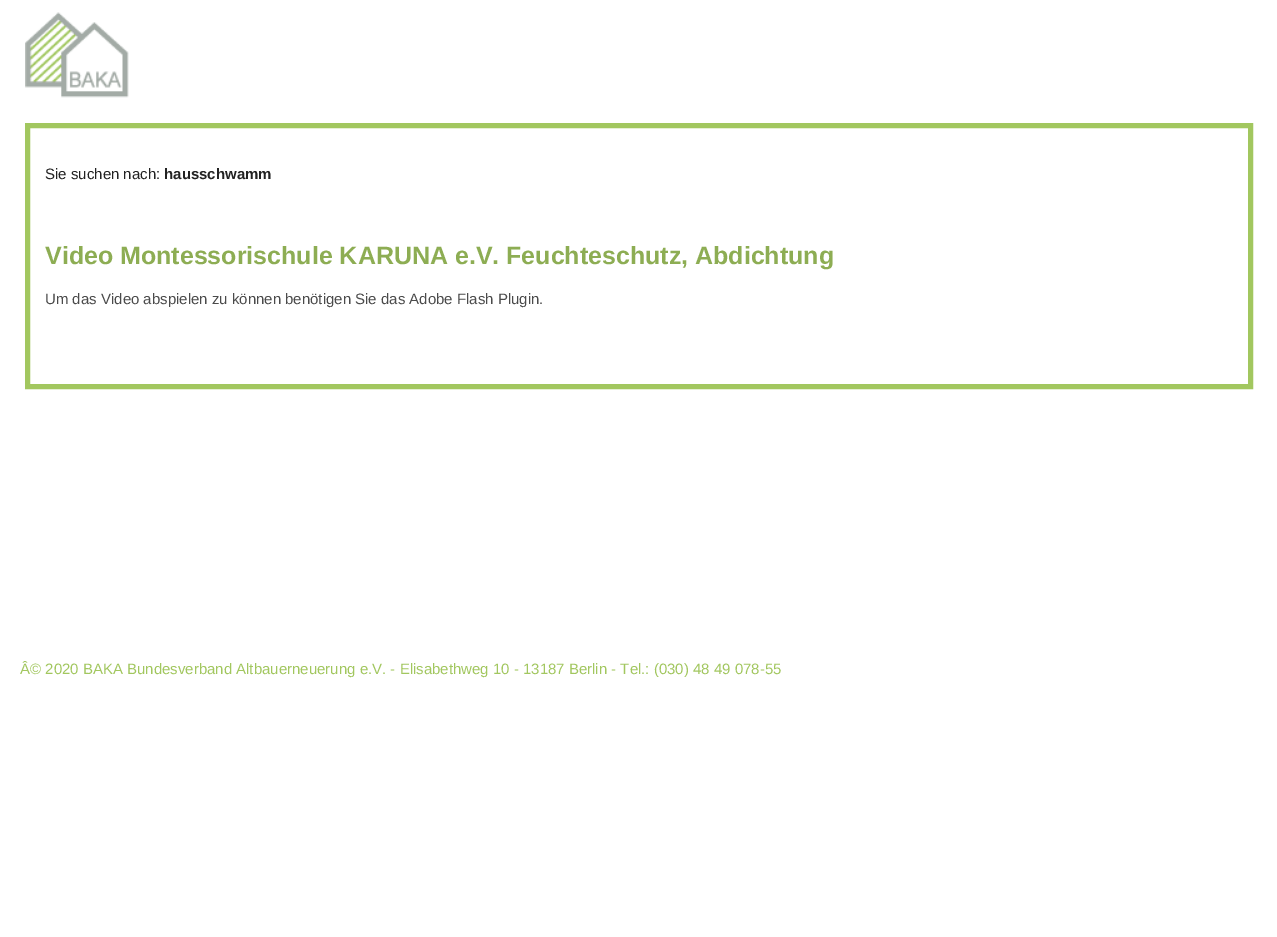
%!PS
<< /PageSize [1277 937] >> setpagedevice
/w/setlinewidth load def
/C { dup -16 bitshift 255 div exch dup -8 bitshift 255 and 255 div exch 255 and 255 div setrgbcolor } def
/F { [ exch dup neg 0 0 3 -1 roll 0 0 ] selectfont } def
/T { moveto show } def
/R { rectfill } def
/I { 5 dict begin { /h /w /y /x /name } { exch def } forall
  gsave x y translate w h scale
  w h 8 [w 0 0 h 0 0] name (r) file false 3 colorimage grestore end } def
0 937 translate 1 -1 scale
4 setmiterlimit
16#FFFFFF C
0 0 1277 937 R
(1.rgb) 25 12 104 86 I
16#A2C75F C
5 w
27.5 125.5 1223 261 rectstroke
/LiberationSans-Regular 15 F
16#222222 C
(Sie suchen nach:) 45 179 T
/LiberationSans-Bold 15 F
(hausschwamm) 164 179 T
/LiberationSans-Bold 25 F
16#8DAD53 C
(Video Montessorischule KARUNA e.V. Feuchteschutz, Abdichtung) 45 264 T
/LiberationSans-Regular 15 F
16#4B4B4B C
(Um das Video abspielen zu können benötigen Sie das Adobe Flash Plugin.) 45 304 T
16#A2C75F C
(Â© 2020 BAKA Bundesverband Altbauerneuerung e.V. - Elisabethweg 10 - 13187 Berlin - Tel.: \(030\) 48 49 078-55) 20 674 T
showpage
